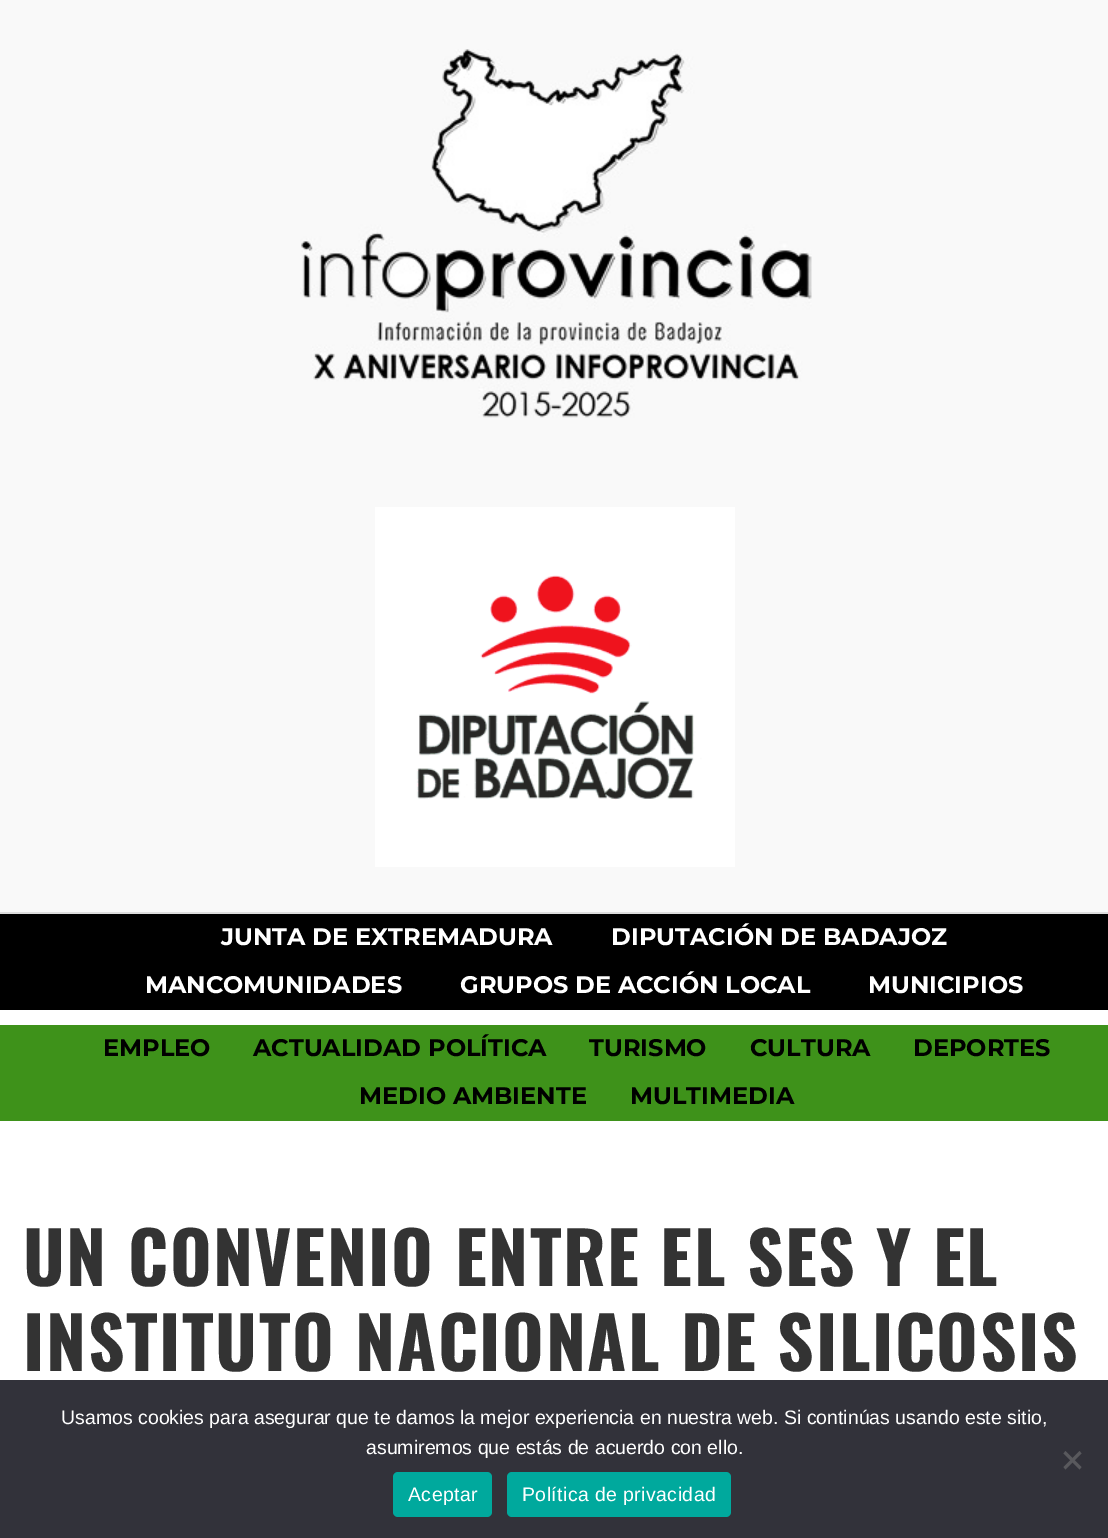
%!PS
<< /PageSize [1108 1538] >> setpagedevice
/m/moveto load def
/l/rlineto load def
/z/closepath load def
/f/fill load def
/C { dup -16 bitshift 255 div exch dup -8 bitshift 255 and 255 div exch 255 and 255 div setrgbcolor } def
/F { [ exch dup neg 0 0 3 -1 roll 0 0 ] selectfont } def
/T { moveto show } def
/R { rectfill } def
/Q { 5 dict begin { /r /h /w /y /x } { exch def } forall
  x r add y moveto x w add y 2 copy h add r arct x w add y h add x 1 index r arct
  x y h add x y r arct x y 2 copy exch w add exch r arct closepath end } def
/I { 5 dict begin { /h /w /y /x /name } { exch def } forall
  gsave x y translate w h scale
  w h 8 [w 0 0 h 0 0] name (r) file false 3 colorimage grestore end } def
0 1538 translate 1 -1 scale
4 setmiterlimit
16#FFFFFF C
0 0 1108 1538 R
16#F9F9F9 C
0 0 1108 912 R
16#DDDDDD C
0 912 1108 2 R
(1.rgb) 300 49 512 369 I
(2.rgb) 375 507 360 360 I
16#000000 C
0 914 1108 96 R
/Montserrat-Bold 24 F
16#FFFFFF C
(JUNTA DE EXTREMADURA) 221 945 T
(DIPUTACIÓN DE BADAJOZ) 611 945 T
(MANCOMUNIDADES) 145 993 T
(GRUPOS DE ACCIÓN LOCAL) 460 993 T
(MUNICIPIOS) 868 993 T
16#3E921A C
0 1025 1108 96 R
16#000000 C
(EMPLEO) 103 1056 T
(ACTUALIDAD POLÍTICA) 253 1056 T
(TURISMO) 589 1056 T
(CULTURA) 750 1056 T
(DEPORTES) 913 1056 T
(MEDIO AMBIENTE) 359 1104 T
(MULTIMEDIA) 630 1104 T
/Oswald-Bold 71.4 F
16#333333 C
23 1286 m 1.5 0 (UN CONVENIO ENTRE EL SES Y EL) ashow
23 1371 m 1.5 0 (INSTITUTO NACIONAL DE SILICOSIS) ashow
16#32323A C
0 1380 1108 158 R
/LiberationSans-Regular 19.5 F
16#FFFFFF C
(Usamos cookies para asegurar que te damos la mejor experiencia en nuestra web. Si continúas usando este sitio,) 61 1424 T
(asumiremos que estás de acuerdo con ello.) 366 1454 T
16#59595D C
1079.5 1451 m 2 2.5 l -16 16 l -2 -2.5 l z f
1063.5 1453.5 m 2 -2.5 l 16 16 l -2 2.5 l z f
16#00A99D C
393 1472 99 45 5 Q f
16#FFFFFF C
408 1501 m .4 0 (Aceptar) ashow
16#00A99D C
507 1472 224 45 5 Q f
16#FFFFFF C
522 1501 m .4 0 (Política de privacidad) ashow
showpage
